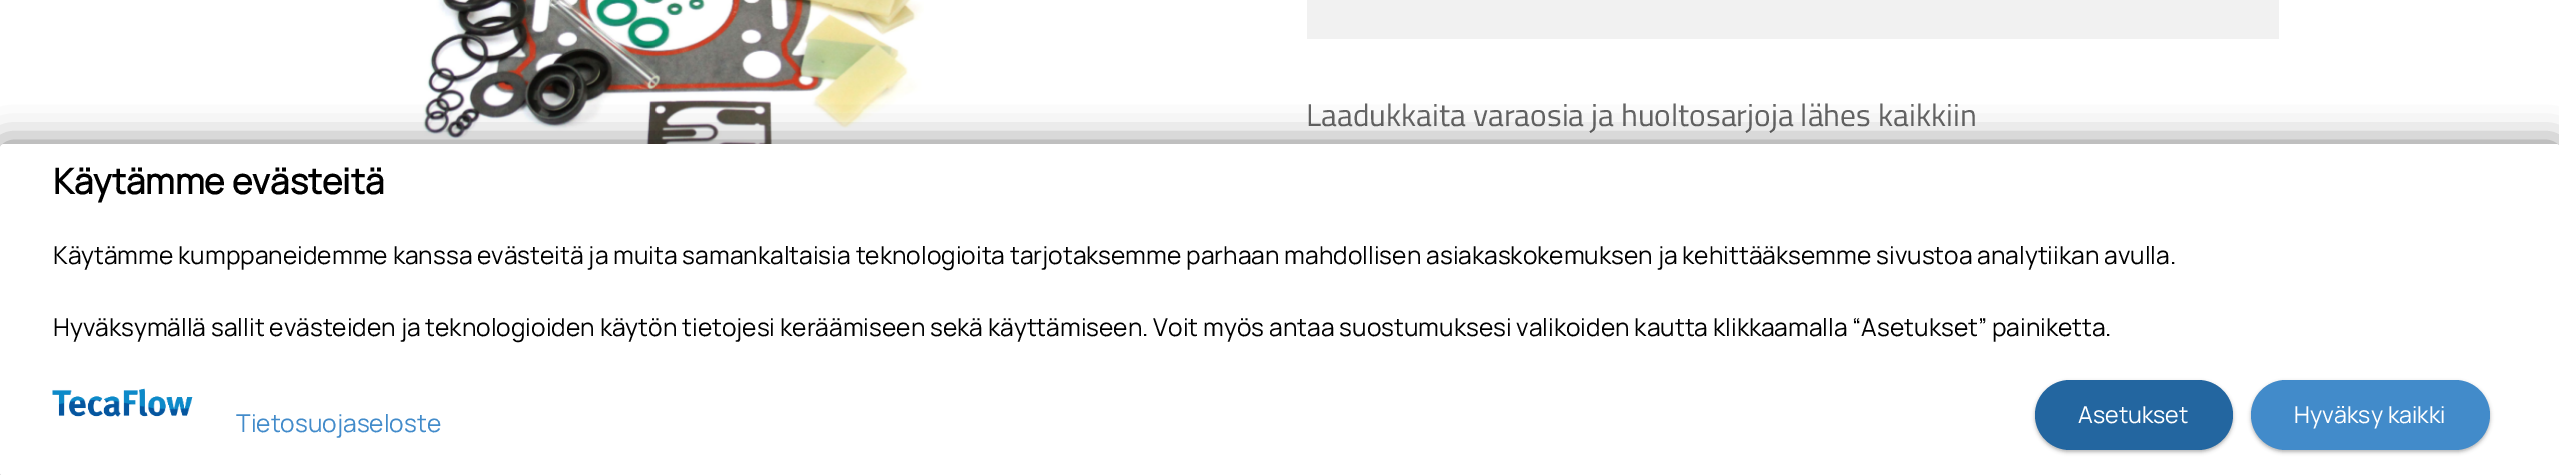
%!PS
<< /PageSize [2559 475] /PageUsesTransparency true >> setpagedevice
/m/moveto load def
/l/rlineto load def
/c/rcurveto load def
/z/closepath load def
/f/fill load def
/C { dup -16 bitshift 255 div exch dup -8 bitshift 255 and 255 div exch 255 and 255 div setrgbcolor } def
/F { [ exch dup neg 0 0 3 -1 roll 0 0 ] selectfont } def
/T { moveto show } def
/R { rectfill } def
/A { dup .setfillconstantalpha .setstrokeconstantalpha } def
/Q { 5 dict begin { /r /h /w /y /x } { exch def } forall
  x r add y moveto x w add y 2 copy h add r arct x w add y h add x 1 index r arct
  x y h add x y r arct x y 2 copy exch w add exch r arct closepath end } def
/S { 12 dict begin { /a /b /q /h /w /y /x } { exch def } forall gsave /was 0 def
  9 -2 -9 { dup b mul 4 div /e exch def 1 sub .425 mul 2.718 exch exp 1 add a .99 .min exch div /now exch def
    1 1 now sub 1 was sub div sub A /was now def
    w h .min e 2 mul add 0 gt { x e sub y e sub w e 2 mul add h e 2 mul add
      q e add b .6 mul add w h .min 2 div e add .min 0 .max Q fill } if } for grestore end } def
/I { 5 dict begin { /h /w /y /x /name } { exch def } forall
  gsave x y translate w h scale
  w h 8 [w 0 0 h 0 0] name (r) file false 3 colorimage grestore end } def
0 .pushpdf14devicefilter
0 475 translate 1 -1 scale
4 setmiterlimit
16#FFFFFF C
0 0 2559 475 R
(1.rgb) 423 0 501 144 I
16#F1F1F1 C
1307 0 972 39 R
/TitilliumWeb-Regular 31.5 F
16#666666 C
(Laadukkaita varaosia ja huoltosarjoja lähes kaikkiin) 1306 126 T
16#000000 C
0 144 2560 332 4 17.5 .5 S
16#FFFFFF C
0 144 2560 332 4 Q f
/Manrope-Bold 35 F
16#000000 C
(Käytämme evästeitä) 53 194 T
/Manrope-ExtraLight 24.5 F
(Käytämme kumppaneidemme kanssa evästeitä ja muita samankaltaisia teknologioita tarjotaksemme parhaan mahdollisen asiakaskokemuksen ja kehittääksemme sivustoa analytiikan avulla.) 53 264 T
(Hyväksymällä sallit evästeiden ja teknologioiden käytön tietojesi keräämiseen sekä käyttämiseen. Voit myös antaa suostumuksesi valikoiden kautta klikkaamalla “Asetukset” painiketta.) 53 336 T
16#FFFFFF C
0 354 m 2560 0 l 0 118 l 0 2 -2 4 -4 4 c -2552 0 l -2 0 -4 -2 -4 -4 c z f
(2.rgb) 52 388 141 29 I
16#428BCA C
(Tietosuojaseloste) 236 432 T
16#000000 C
2035 382 198 70 35 2 .3 S
16#2366A0 C
2035 380 198 70 35 Q f
/Manrope-ExtraLight 23.25 F
16#FFFFFF C
(Asetukset) 2078 423 T
16#000000 C
2251 382 239 70 35 2 .3 S
16#428BCA C
2251 380 239 70 35 Q f
16#FFFFFF C
(Hyväksy kaikki) 2294 423 T
.poppdf14devicefilter showpage
